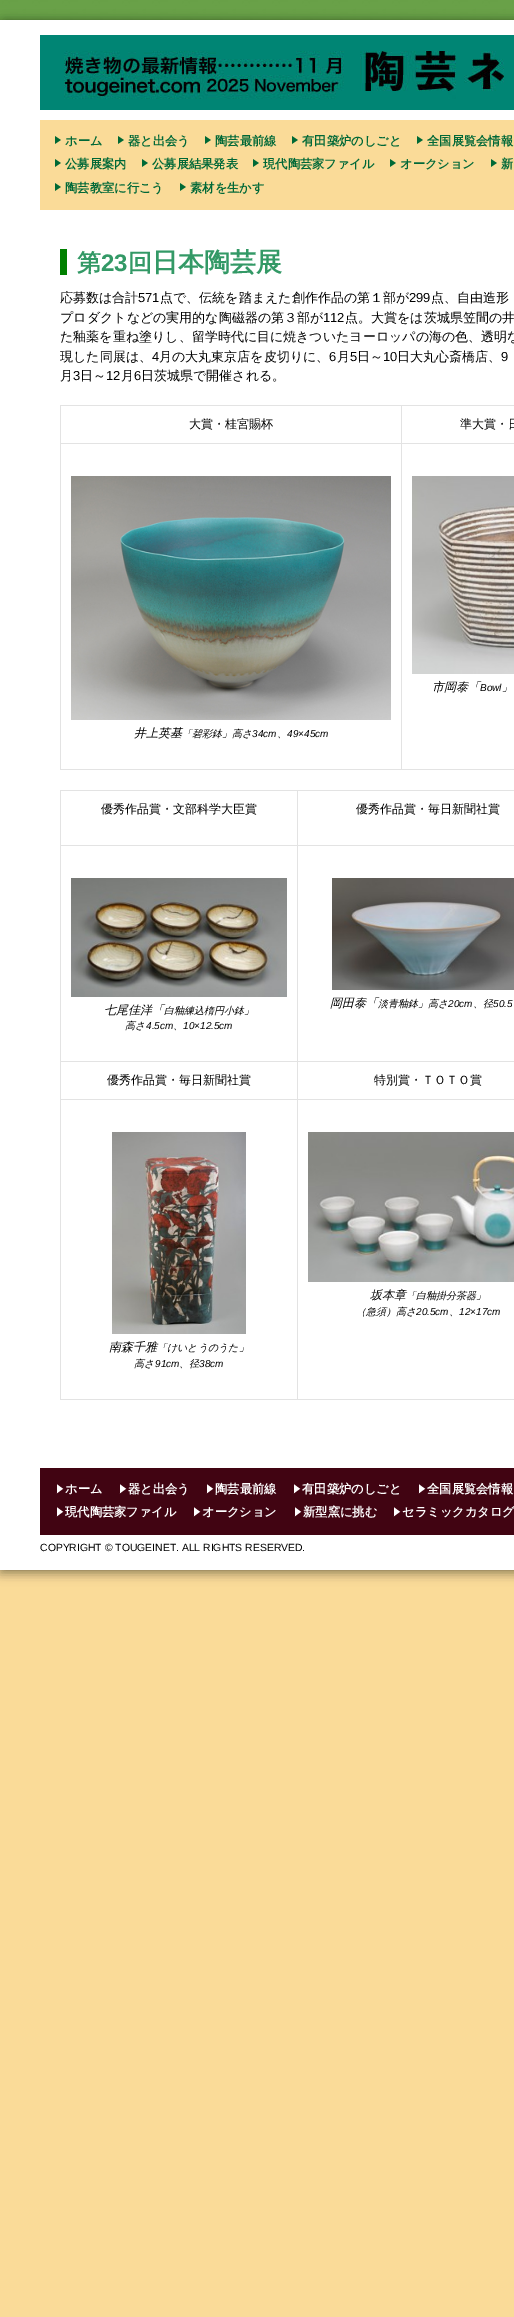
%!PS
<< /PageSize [514 2317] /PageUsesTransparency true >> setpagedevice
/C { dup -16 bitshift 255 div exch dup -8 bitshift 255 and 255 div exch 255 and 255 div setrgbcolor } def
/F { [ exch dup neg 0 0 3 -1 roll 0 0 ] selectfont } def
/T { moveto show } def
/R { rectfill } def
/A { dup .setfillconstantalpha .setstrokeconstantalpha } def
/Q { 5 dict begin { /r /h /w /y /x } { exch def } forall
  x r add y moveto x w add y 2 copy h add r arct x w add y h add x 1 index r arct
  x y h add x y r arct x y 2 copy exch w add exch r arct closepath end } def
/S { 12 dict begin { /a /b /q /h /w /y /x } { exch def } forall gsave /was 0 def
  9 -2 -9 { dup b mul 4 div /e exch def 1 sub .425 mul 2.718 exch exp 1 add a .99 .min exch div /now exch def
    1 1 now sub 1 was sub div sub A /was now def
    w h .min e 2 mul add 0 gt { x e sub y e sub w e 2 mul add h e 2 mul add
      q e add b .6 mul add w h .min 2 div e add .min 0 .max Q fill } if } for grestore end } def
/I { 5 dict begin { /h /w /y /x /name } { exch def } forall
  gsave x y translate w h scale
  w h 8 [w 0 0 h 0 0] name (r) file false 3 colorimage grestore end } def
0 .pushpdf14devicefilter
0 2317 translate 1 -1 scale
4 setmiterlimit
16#FADB98 C
0 0 514 2317 R
(1.rgb) 0 0 514 20 I
16#000000 C
0 25 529 1550 0 5 .2 S
-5 20 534 1550 0 5 .2 S
5 20 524 1550 0 5 .2 S
16#FFFFFF C
0 20 514 1550 R
(2.rgb) 40 35 474 75 I
16#FADB98 C
40 120 474 90 R
(3.rgb) 55 136 6 8 I
/WenQuanYiZenHei-Bold 12.25 F
16#006837 C
(ホーム) 65 145 T
(3.rgb) 118 136 6 8 I
(器と出会う) 128 145 T
(3.rgb) 205 136 6 8 I
(陶芸最前線) 215 145 T
(3.rgb) 292 136 6 8 I
(有田築炉のしごと) 302 145 T
(3.rgb) 417 136 6 8 I
(全国展覧会情報) 427 145 T
(3.rgb) 55 159 6 8 I
(公募展案内) 65 168 T
(3.rgb) 142 159 6 8 I
(公募展結果発表) 152 168 T
(3.rgb) 253 159 6 8 I
(現代陶芸家ファイル) 263 168 T
(3.rgb) 390 159 6 8 I
(オークション) 400 168 T
(3.rgb) 491 159 6 8 I
(新) 501 168 T
(3.rgb) 55 183 6 8 I
(陶芸教室に行こう) 65 192 T
(3.rgb) 180 183 6 8 I
(素材を生かす) 190 192 T
16#008000 C
60 249 7 26 R
/WenQuanYiZenHei-Bold 24 F
16#339966 C
(第) 77 271 T
/LiberationSans-Bold 24 F
(23) 101 271 T
/WenQuanYiZenHei-Bold 24 F
(回) 128 271 T
/WenQuanYiZenHei-Bold 26 F
(日本陶芸展) 152 271 T
/WenQuanYiZenHei-Medium 13 F
16#000000 C
(応募数は合計) 60 302 T
/LiberationSans-Regular 13 F
(571) 138 302 T
/WenQuanYiZenHei-Medium 13 F
(点で、伝統を踏まえた創作作品の第１部が) 160 302 T
/LiberationSans-Regular 13 F
(299) 409 302 T
/WenQuanYiZenHei-Medium 13 F
(点、自由造形) 431 302 T
(プロダクトなどの実用的な陶磁器の第３部が) 60 322 T
/LiberationSans-Regular 13 F
(112) 323 322 T
/WenQuanYiZenHei-Medium 13 F
(点。大賞をは茨城県笠間の井) 345 322 T
(た釉薬を重ね塗りし、留学時代に目に焼きついたヨーロッパの海の色、透明な) 60 341 T
(現した同展は、) 60 361 T
/LiberationSans-Regular 13 F
(4) 152 361 T
/WenQuanYiZenHei-Medium 13 F
(月の大丸東京店を皮切りに、) 159 361 T
/LiberationSans-Regular 13 F
(6) 329 361 T
/WenQuanYiZenHei-Medium 13 F
(月) 337 361 T
/LiberationSans-Regular 13 F
(5) 350 361 T
/WenQuanYiZenHei-Medium 13 F
(日～) 357 361 T
/LiberationSans-Regular 13 F
(10) 383 361 T
/WenQuanYiZenHei-Medium 13 F
(日大丸心斎橋店、) 397 361 T
/LiberationSans-Regular 13 F
(9) 501 361 T
/WenQuanYiZenHei-Medium 13 F
(月) 60 380 T
/LiberationSans-Regular 13 F
(3) 73 380 T
/WenQuanYiZenHei-Medium 13 F
(日～) 80 380 T
/LiberationSans-Regular 13 F
(12) 106 380 T
/WenQuanYiZenHei-Medium 13 F
(月) 121 380 T
/LiberationSans-Regular 13 F
(6) 134 380 T
/WenQuanYiZenHei-Medium 13 F
(日茨城県で開催される。) 141 380 T
16#E3E3E3 C
60 405 454 1 R
60 769 454 1 R
60 405 1 365 R
401 443 1 327 R
401 443 113 1 R
401 405 1 39 R
60 443 342 1 R
/WenQuanYiZenHei-Medium 12 F
16#000000 C
(大賞・桂宮賜杯) 189 428 T
(準大賞・日) 460 428 T
(4.rgb) 412 476 102 198 I
/WenQuanYiZenHei-MediumItalic 12 F
(市岡泰「) 432 691 T
/LiberationSans-Italic 10 F
(Bowl) 480 691 T
/WenQuanYiZenHei-MediumItalic 10 F
(」) 502 691 T
(5.rgb) 71 476 320 244 I
/WenQuanYiZenHei-MediumItalic 12 F
(井上英基) 134 737 T
/WenQuanYiZenHei-MediumItalic 10 F
(「碧彩鉢」高さ) 182 737 T
/LiberationSans-Italic 10 F
(34cm) 252 737 T
/WenQuanYiZenHei-MediumItalic 10 F
(、) 277 737 T
/LiberationSans-Italic 10 F
(49×45cm) 287 737 T
16#E3E3E3 C
60 790 454 1 R
60 1399 454 1 R
60 790 1 610 R
297 1099 1 301 R
297 1099 217 1 R
297 1061 1 39 R
297 1061 217 1 R
297 845 1 217 R
297 845 217 1 R
297 790 1 56 R
60 845 238 1 R
/WenQuanYiZenHei-Medium 12 F
16#000000 C
(優秀作品賞・文部科学大臣賞) 101 813 T
(優秀作品賞・毎日新聞社賞) 356 813 T
16#E3E3E3 C
60 1061 238 1 R
(6.rgb) 71 878 216 119 I
/WenQuanYiZenHei-MediumItalic 12 F
16#000000 C
(七尾佳洋「) 104 1014 T
/WenQuanYiZenHei-MediumItalic 10 F
(白釉練込楕円小鉢」) 164 1014 T
(高さ) 125 1029 T
/LiberationSans-Italic 10 F
(4.5cm) 146 1029 T
/WenQuanYiZenHei-MediumItalic 10 F
(、) 173 1029 T
/LiberationSans-Italic 10 F
(10×12.5cm) 183 1029 T
(7.rgb) 332 878 182 112 I
/WenQuanYiZenHei-MediumItalic 12 F
(岡田泰「) 330 1007 T
/WenQuanYiZenHei-MediumItalic 10 F
(淡青釉鉢」高さ) 378 1007 T
/LiberationSans-Italic 10 F
(20cm) 448 1007 T
/WenQuanYiZenHei-MediumItalic 10 F
(、径) 473 1007 T
/LiberationSans-Italic 10 F
(50.5) 493 1007 T
16#E3E3E3 C
60 1099 238 1 R
/WenQuanYiZenHei-Medium 12 F
16#000000 C
(優秀作品賞・毎日新聞社賞) 107 1084 T
(特別賞・ＴＯＴＯ賞) 374 1084 T
(8.rgb) 308 1132 206 150 I
/WenQuanYiZenHei-MediumItalic 12 F
(坂本章) 370 1299 T
/WenQuanYiZenHei-MediumItalic 10 F
(「白釉掛分茶器」) 406 1299 T
(（急須）高さ) 356 1315 T
/LiberationSans-Italic 10 F
(20.5cm) 416 1315 T
/WenQuanYiZenHei-MediumItalic 10 F
(、) 449 1315 T
/LiberationSans-Italic 10 F
(12×17cm) 459 1315 T
(9.rgb) 112 1132 134 202 I
/WenQuanYiZenHei-MediumItalic 12 F
(南森千雅) 109 1351 T
/WenQuanYiZenHei-MediumItalic 10 F
(「けいとうのうた」) 157 1351 T
(高さ) 134 1367 T
/LiberationSans-Italic 10 F
(91cm) 155 1367 T
/WenQuanYiZenHei-MediumItalic 10 F
(、径) 179 1367 T
/LiberationSans-Italic 10 F
(38cm) 199 1367 T
16#410412 C
40 1468 474 67 R
(10.rgb) 56 1484 8 10 I
/WenQuanYiZenHei-Bold 12.25 F
16#FFFFFF C
(ホーム) 65 1493 T
(10.rgb) 119 1484 8 10 I
(器と出会う) 128 1493 T
(10.rgb) 206 1484 8 10 I
(陶芸最前線) 215 1493 T
(10.rgb) 293 1484 8 10 I
(有田築炉のしごと) 302 1493 T
(10.rgb) 418 1484 8 10 I
(全国展覧会情報) 427 1493 T
(10.rgb) 56 1507 8 10 I
(現代陶芸家ファイル) 65 1516 T
(10.rgb) 193 1507 8 10 I
(オークション) 202 1516 T
(10.rgb) 294 1507 8 10 I
(新型窯に挑む) 303 1516 T
(10.rgb) 393 1507 8 10 I
(セラミックカタログ) 402 1516 T
/LiberationSans-Regular 10.4 F
16#000000 C
(COPYRIGHT © TOUGEINET. ALL RIGHTS RESERVED.) 40 1551 T
.poppdf14devicefilter showpage
